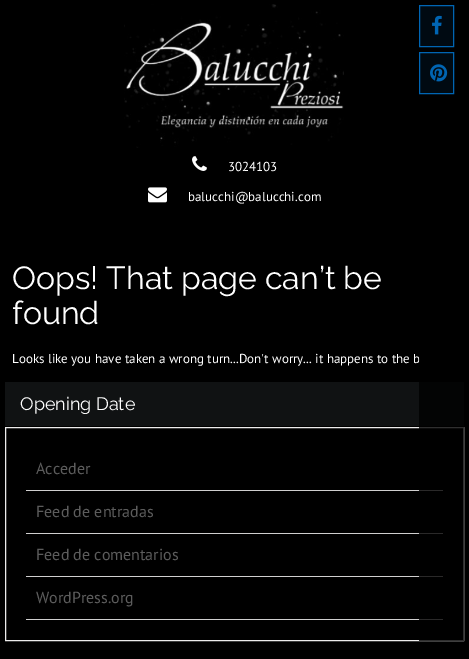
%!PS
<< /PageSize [469 659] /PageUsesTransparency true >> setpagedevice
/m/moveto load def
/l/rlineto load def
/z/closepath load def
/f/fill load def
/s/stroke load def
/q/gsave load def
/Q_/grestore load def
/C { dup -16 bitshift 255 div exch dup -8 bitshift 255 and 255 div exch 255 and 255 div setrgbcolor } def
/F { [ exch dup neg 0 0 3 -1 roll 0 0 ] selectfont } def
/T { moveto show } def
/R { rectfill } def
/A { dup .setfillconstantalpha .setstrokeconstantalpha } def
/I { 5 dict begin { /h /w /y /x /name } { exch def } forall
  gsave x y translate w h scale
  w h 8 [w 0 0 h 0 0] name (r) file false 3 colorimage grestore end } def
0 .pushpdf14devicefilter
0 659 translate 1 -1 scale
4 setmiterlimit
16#000000 C
0 0 469 659 R
(1.rgb) 124 4 220 144 I
(2.rgb) 192 156 15 15 I
/PTSans-Regular 13 F
16#FFFFFF C
(3024103) 228 171 T
(3.rgb) 148 187 19 16 I
(balucchi@balucchi.com) 188 201 T
(Looks like you have taken a wrong turn...Don't worry... it happens to the b) 12 363 T
16#101213 C
5 382 459 44 R
16#EDECEC C
5.5 427.5 458 213 rectstroke
16#D0CFCF C
26 490 417 1 R
26 533 417 1 R
26 576 417 1 R
26 619 417 1 R
0.8 A
16#000000 C
419 357 45 284 R
1 A
16#000A12 C
419.5 5.5 m 34 0 l 0 41 l -34 0 l z q f Q_
16#0065B3 C
s
(4.rgb) 432 15 10 20 I
16#000A12 C
419.5 52.5 m 34 0 l 0 41 l -34 0 l z q f Q_
16#0065B3 C
s
(5.rgb) 430 64 18 18 I
/Raleway-Regular 32 F
16#FFFFFF C
(Oops! That page can’t be) 12 289 T
(found) 12 324 T
/Raleway-Regular 18 F
(Opening Date) 20 410 T
/PTSans-Regular 16 F
16#5C5C5C C
(Acceder) 36 474 T
(Feed de entradas) 36 517 T
(Feed de comentarios) 36 560 T
(WordPress.org) 36 603 T
.poppdf14devicefilter showpage
